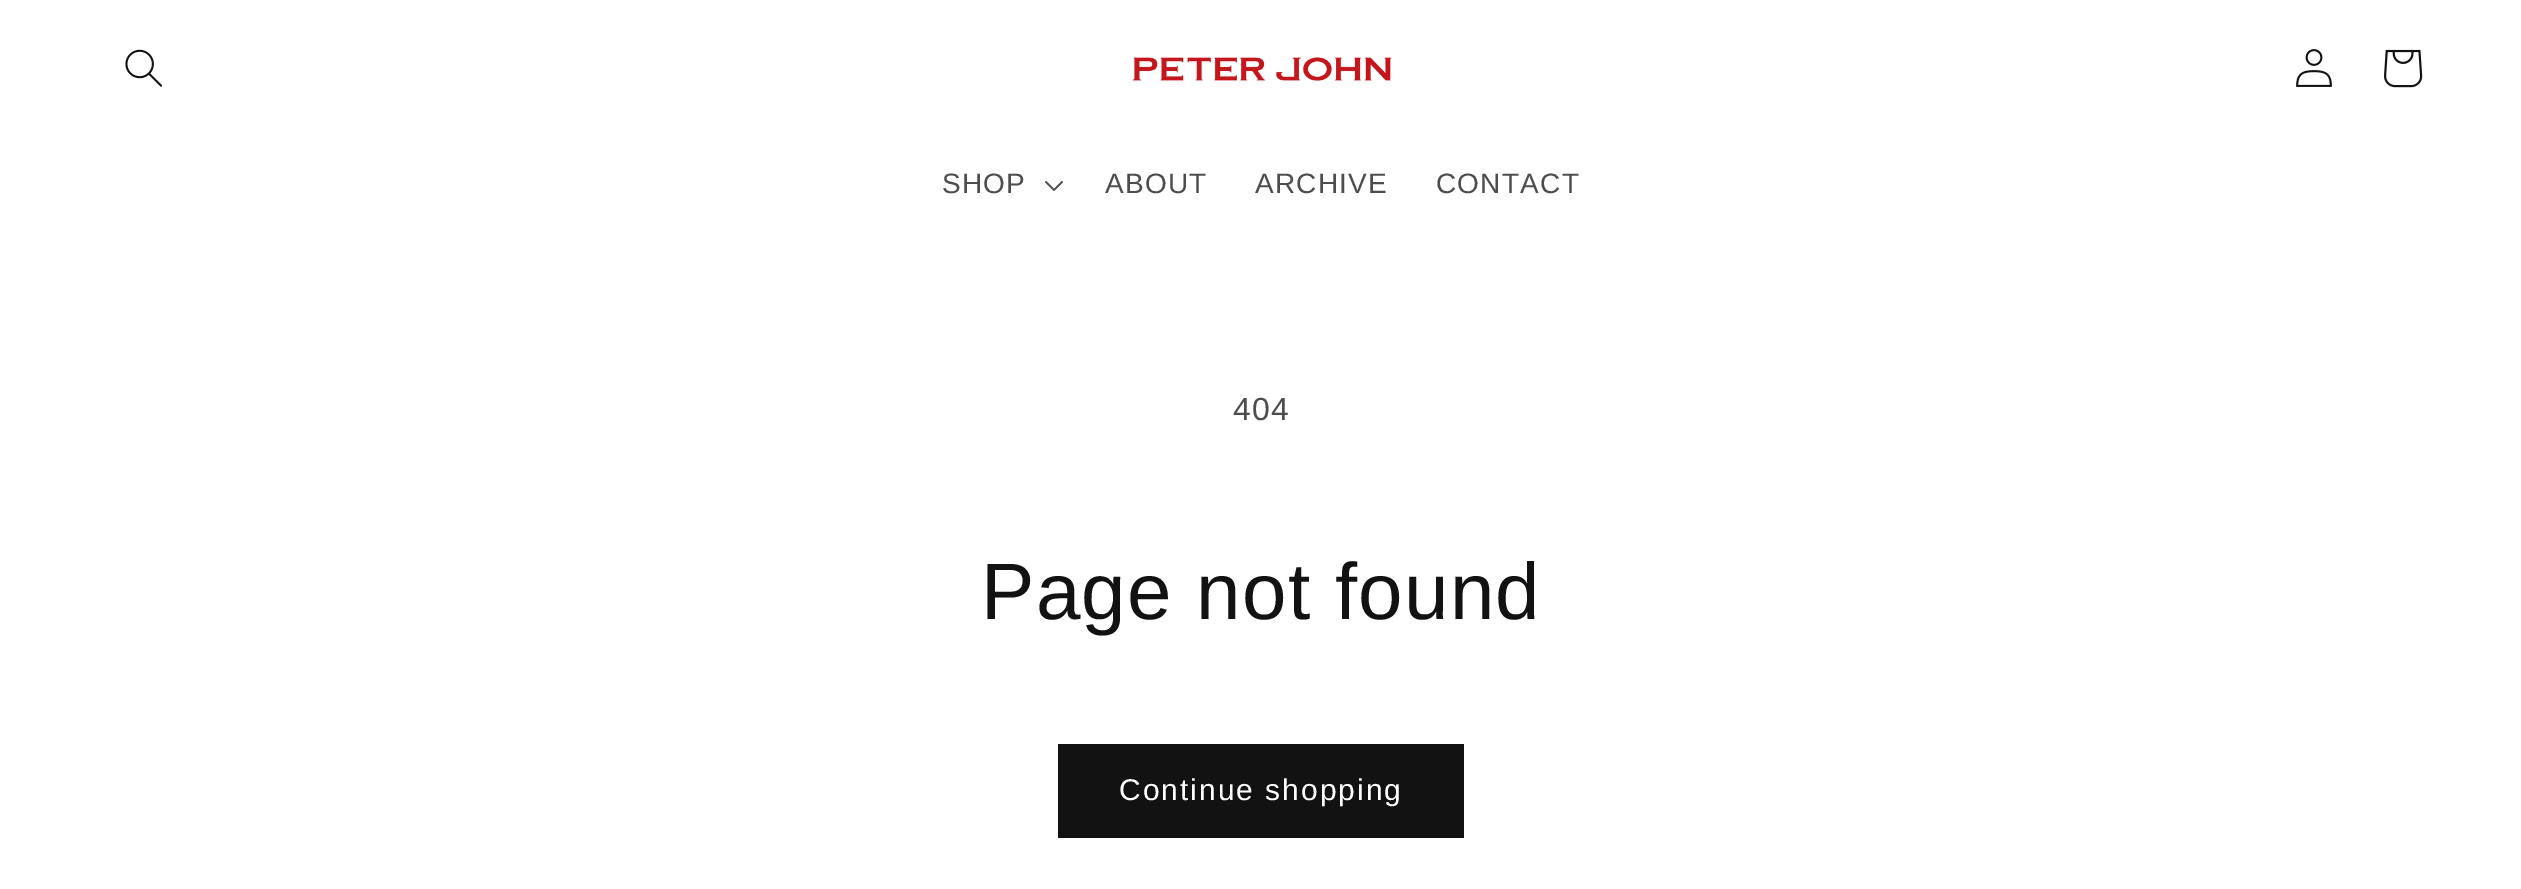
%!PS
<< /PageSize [2521 889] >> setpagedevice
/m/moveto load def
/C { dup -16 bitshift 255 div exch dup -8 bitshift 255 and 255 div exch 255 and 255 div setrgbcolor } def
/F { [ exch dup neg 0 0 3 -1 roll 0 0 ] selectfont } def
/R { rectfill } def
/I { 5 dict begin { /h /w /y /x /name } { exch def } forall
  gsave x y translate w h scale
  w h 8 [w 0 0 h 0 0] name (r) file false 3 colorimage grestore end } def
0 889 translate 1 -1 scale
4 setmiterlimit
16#FFFFFF C
0 0 2521 889 R
(1.rgb) 125 49 37 38 I
(2.rgb) 1132 57 260 24 I
(3.rgb) 2296 49 36 38 I
(4.rgb) 2384 49 39 39 I
/LiberationSans-Regular 28 F
16#4D4D4D C
942 193 m 1.25 0 (SHOP) ashow
(5.rgb) 1045 181 18 10 I
1105 193 m 1.25 0 (ABOUT) ashow
1255 193 m 1.25 0 (ARCHIVE) ashow
1436 193 m 1.25 0 (CONTACT) ashow
/LiberationSans-Regular 32 F
1233 420 m 1.25 0 (404) ashow
/LiberationSans-Regular 80 F
16#121212 C
981 619 m 1.25 0 (Page not found) ashow
1058 744 406 94 R
/LiberationSans-Regular 30 F
16#FFFFFF C
1119 800 m 2 0 (Continue shopping) ashow
showpage
